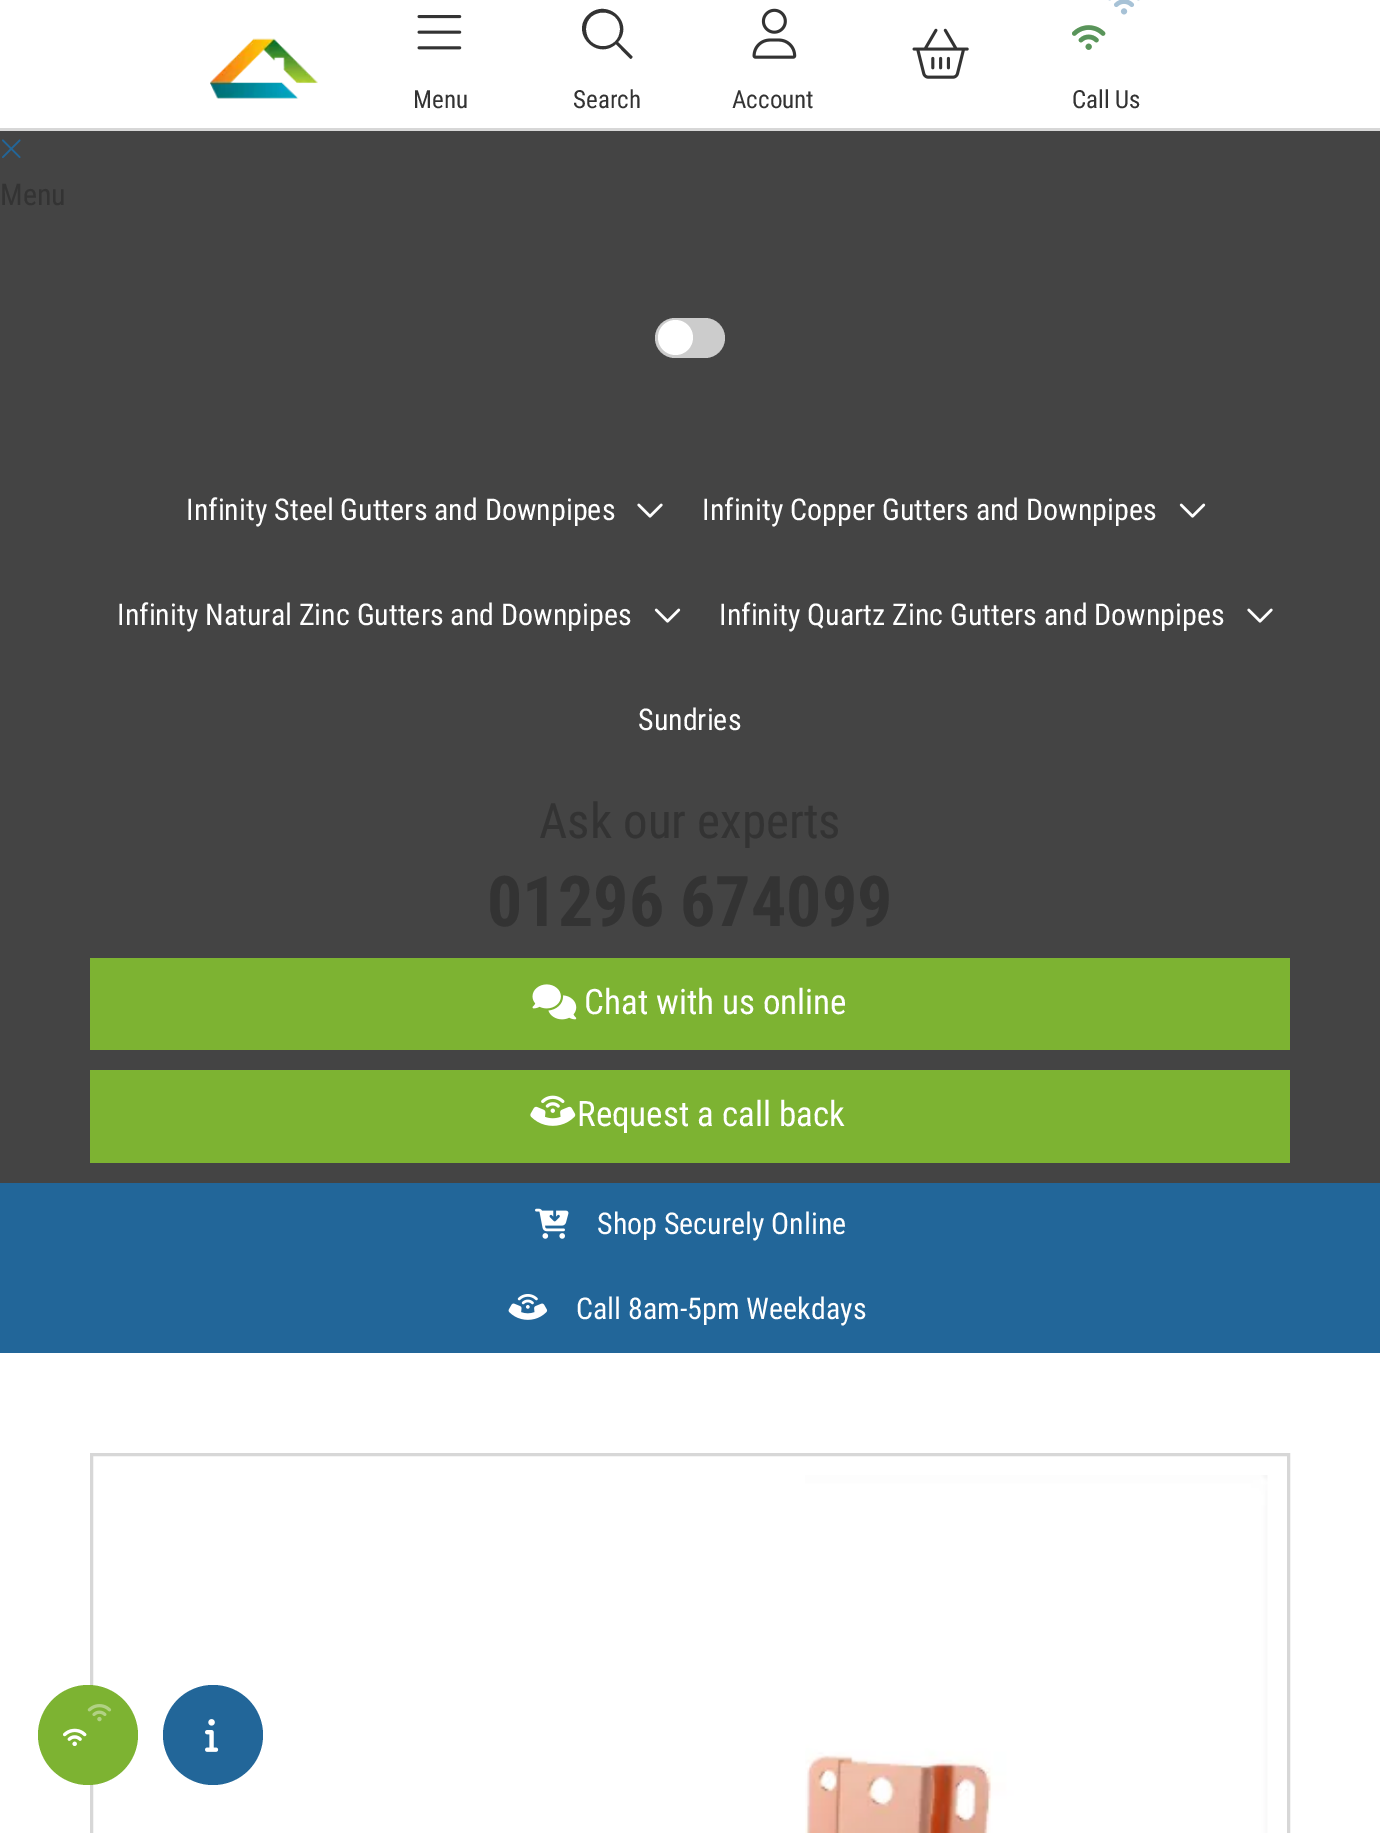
%!PS
<< /PageSize [1380 1833] >> setpagedevice
/m/moveto load def
/l/rlineto load def
/c/rcurveto load def
/z/closepath load def
/f/fill load def
/w/setlinewidth load def
/C { dup -16 bitshift 255 div exch dup -8 bitshift 255 and 255 div exch 255 and 255 div setrgbcolor } def
/F { [ exch dup neg 0 0 3 -1 roll 0 0 ] selectfont } def
/T { moveto show } def
/R { rectfill } def
/O { newpath 0 360 arc closepath } def
/Q { 5 dict begin { /r /h /w /y /x } { exch def } forall
  x r add y moveto x w add y 2 copy h add r arct x w add y h add x 1 index r arct
  x y h add x y r arct x y 2 copy exch w add exch r arct closepath end } def
/I { 5 dict begin { /h /w /y /x /name } { exch def } forall
  gsave x y translate w h scale
  w h 8 [w 0 0 h 0 0] name (r) file false 3 colorimage grestore end } def
0 1833 translate 1 -1 scale
4 setmiterlimit
16#FFFFFF C
0 0 1380 1833 R
16#D7D7D7 C
0 128 1380 3 R
(1.rgb) 210 38 108 61 I
(2.rgb) 417 15 45 35 I
/RobotoCondensed-Regular 25 F
16#333333 C
(Menu) 413 108 T
620 29 m 0 -22 -34 -22 -34 0 c 0 23 34 23 34 0 c z 616 44 m -19 17 -46 -11 -28 -29 c 19 -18 47 8 30 27 c 14 14 l 1 1 0 2 -1 3 c -1 0 -13 -13 -15 -15 c z f
(Search) 573 108 T
(3.rgb) 752 8 45 51 I
(Account) 732 108 T
(4.rgb) 912 28 57 51 I
(6.rgb) 1072 25 34 25 I
(5.rgb) 1072 0 68 50 I
(Call Us) 1072 108 T
16#444444 C
0 131 1380 1052 R
(7.rgb) 2 139 19 19 I
/RobotoCondensed-Regular 30 F
16#333333 C
(Menu) 0 205 T
16#CCCCCC C
655 318 70 40 20 Q f
16#FFFFFF C
675.5 337.5 17.5 O f
(Infinity Steel Gutters and Downpipes) 186 520 T
(8.rgb) 637 503 26 15 I
(Infinity Copper Gutters and Downpipes) 702 520 T
(9.rgb) 1179 503 27 15 I
(Infinity Natural Zinc Gutters and Downpipes) 117 625 T
(9.rgb) 654 608 27 15 I
(Infinity Quartz Zinc Gutters and Downpipes) 719 625 T
(8.rgb) 1247 608 26 15 I
(Sundries) 638 730 T
/RobotoCondensed-Regular 49 F
16#333333 C
(Ask our experts) 539 838 T
/RobotoCondensed-Bold 70 F
(01296 674099) 487 926 T
16#7DB332 C
90 958 1200 92 R
(10.rgb) 532 984 45 36 I
/RobotoCondensed-Regular 35 F
16#FFFFFF C
(Chat with us online) 584 1014 T
16#7DB332 C
90 1070 1200 93 R
(11.rgb) 530 1095 46 31 I
16#FFFFFF C
(Request a call back) 577 1126 T
16#226699 C
0 1183 1380 170 R
(12.rgb) 535 1208 34 31 I
/RobotoCondensed-Regular 30 F
16#FFFFFF C
(Shop Securely Online) 597 1234 T
(13.rgb) 508 1294 40 26 I
(Call 8am-5pm Weekdays) 576 1319 T
16#D7D7D7 C
3 w
91.5 1454.5 1197 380 rectstroke
(14.rgb) 805 1475 463 358 I
16#7DB332 C
88 1735 50 O f
(16.rgb) 63 1728 24 18 I
(15.rgb) 63 1704 49 42 I
16#226699 C
213 1735 50 O f
(17.rgb) 205 1719 14 33 I
showpage
